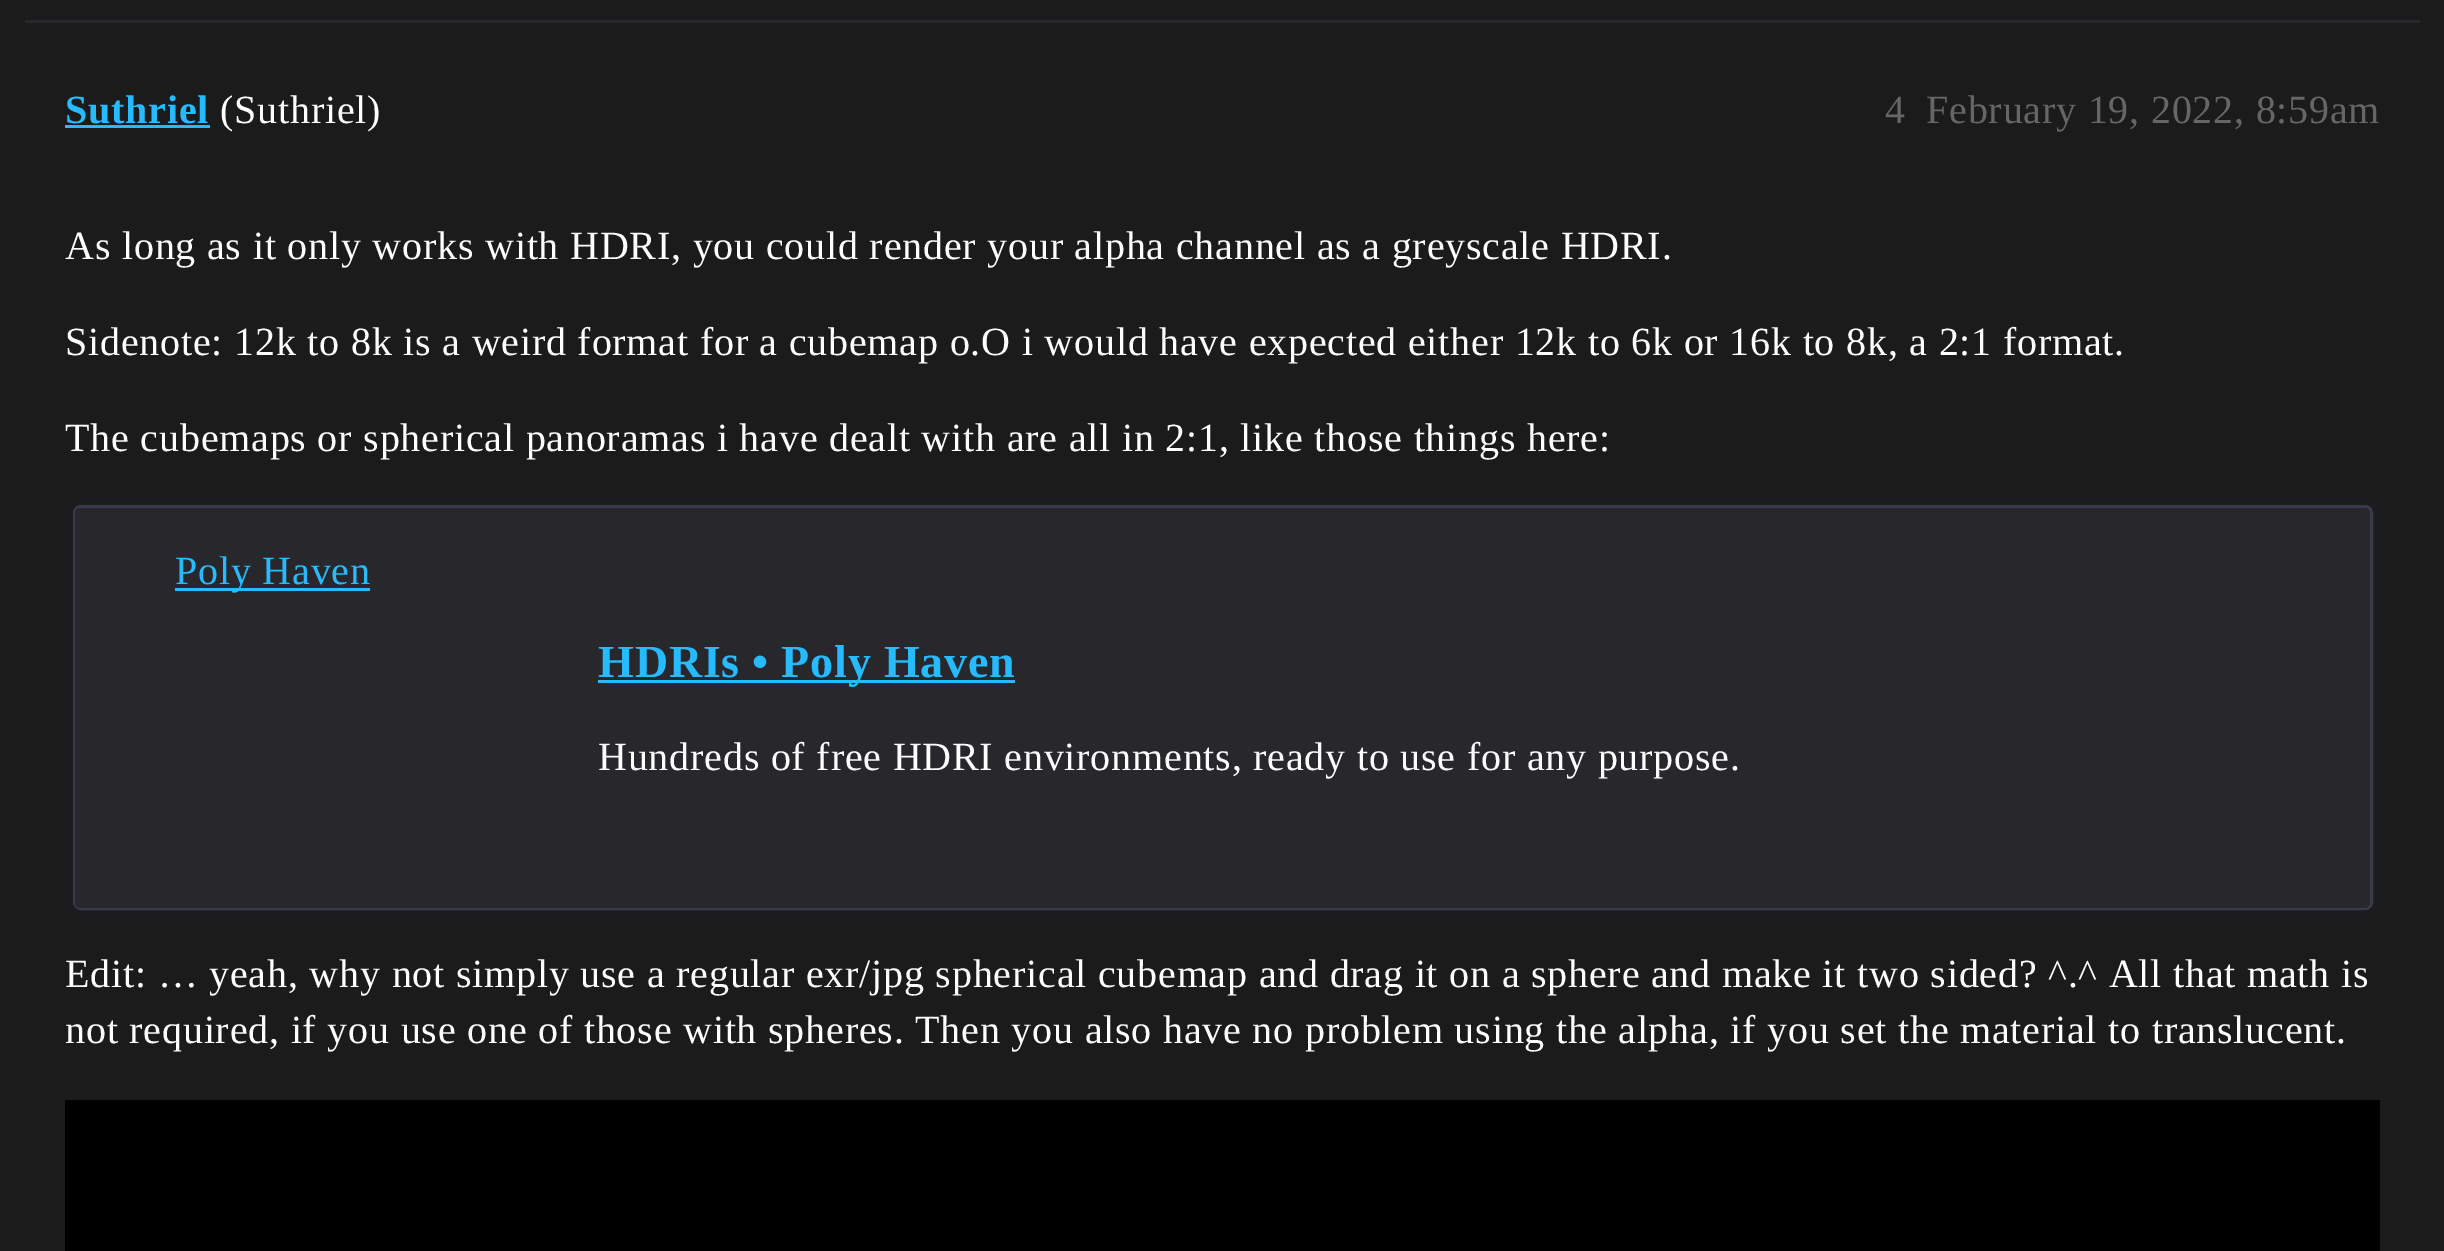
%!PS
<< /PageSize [2444 1251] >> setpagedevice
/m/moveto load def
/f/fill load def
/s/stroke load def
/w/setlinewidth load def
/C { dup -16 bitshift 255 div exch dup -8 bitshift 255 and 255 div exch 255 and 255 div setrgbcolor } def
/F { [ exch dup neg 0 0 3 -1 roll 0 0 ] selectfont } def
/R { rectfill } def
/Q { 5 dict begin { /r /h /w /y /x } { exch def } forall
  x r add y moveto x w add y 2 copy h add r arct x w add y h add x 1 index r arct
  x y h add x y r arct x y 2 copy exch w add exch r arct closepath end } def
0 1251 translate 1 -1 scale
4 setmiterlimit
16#1B1B1B C
0 0 2444 1251 R
16#28282C C
25 20 2395 3 R
/LiberationSerif-Bold 40 F
16#26BBFF C
65 123 m .8 0 (Suthriel) ashow
65 125 145 3 R
/LiberationSerif-Regular 40 F
16#FFFFFF C
220 123 m .8 0 (\(Suthriel\)) ashow
16#666666 C
1885 123 m .8 0 (4) ashow
1926 123 m .8 0 (February 19, 2022, 8:59am) ashow
16#FFFFFF C
65 259 m .8 0 (As long as it only works with HDRI, you could render your alpha channel as a greyscale HDRI.) ashow
65 355 m .8 0 (Sidenote: 12k to 8k is a weird format for a cubemap o.O i would have expected either 12k to 6k or 16k to 8k, a 2:1 format.) ashow
65 451 m .8 0 (The cubemaps or spherical panoramas i have dealt with are all in 2:1, like those things here:) ashow
16#1C1C20 C
10 w
70 503 2305 410 10 Q s
16#373B4B C
3 w
74.5 506.5 2297 402 6.5 Q s
16#28282C C
75 508 2295 400 5 Q f
16#26BBFF C
175 588 195 3 R
175 584 m .8 0 (Poly Haven) ashow
598 680 417 3 R
/LiberationSerif-Bold 46 F
598 677 m .8 0 (HDRIs • Poly Haven) ashow
/LiberationSerif-Regular 40 F
16#FFFFFF C
598 770 m .8 0 (Hundreds of free HDRI environments, ready to use for any purpose.) ashow
65 987 m .8 0 (Edit: … yeah, why not simply use a regular exr/jpg spherical cubemap and drag it on a sphere and make it two sided? ^.^ All that math is) ashow
65 1043 m .8 0 (not required, if you use one of those with spheres. Then you also have no problem using the alpha, if you set the material to translucent.) ashow
16#000000 C
65 1100 2315 151 R
showpage
